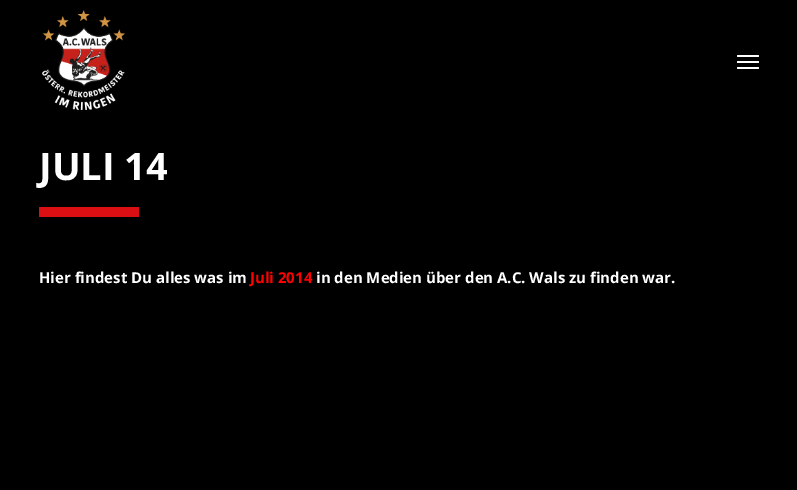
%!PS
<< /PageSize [797 490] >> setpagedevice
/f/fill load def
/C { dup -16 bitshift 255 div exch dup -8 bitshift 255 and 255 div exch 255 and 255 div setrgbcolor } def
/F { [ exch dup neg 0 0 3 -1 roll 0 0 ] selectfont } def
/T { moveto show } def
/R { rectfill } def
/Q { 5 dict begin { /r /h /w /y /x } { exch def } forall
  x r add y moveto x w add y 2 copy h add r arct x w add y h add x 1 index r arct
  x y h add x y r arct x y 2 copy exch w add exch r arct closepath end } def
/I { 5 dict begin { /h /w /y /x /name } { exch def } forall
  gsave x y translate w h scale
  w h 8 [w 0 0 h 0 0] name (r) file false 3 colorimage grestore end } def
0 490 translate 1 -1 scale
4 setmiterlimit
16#000000 C
0 0 797 490 R
(1.rgb) 42 10 83 100 I
16#FFFFFF C
737 55 22 2 1 Q f
737 61 22 2 1 Q f
737 67 22 2 1 Q f
/OpenSans-Bold 38 F
(JULI 14) 39 180 T
16#D90F14 C
39 207 100 10 R
/OpenSans-Bold 15 F
16#FFFFFF C
(Hier findest Du alles was im) 39 283 T
16#FF0000 C
(Juli 2014) 250 283 T
16#FFFFFF C
(in den Medien über den A.C. Wals zu finden war.) 316 283 T
showpage
